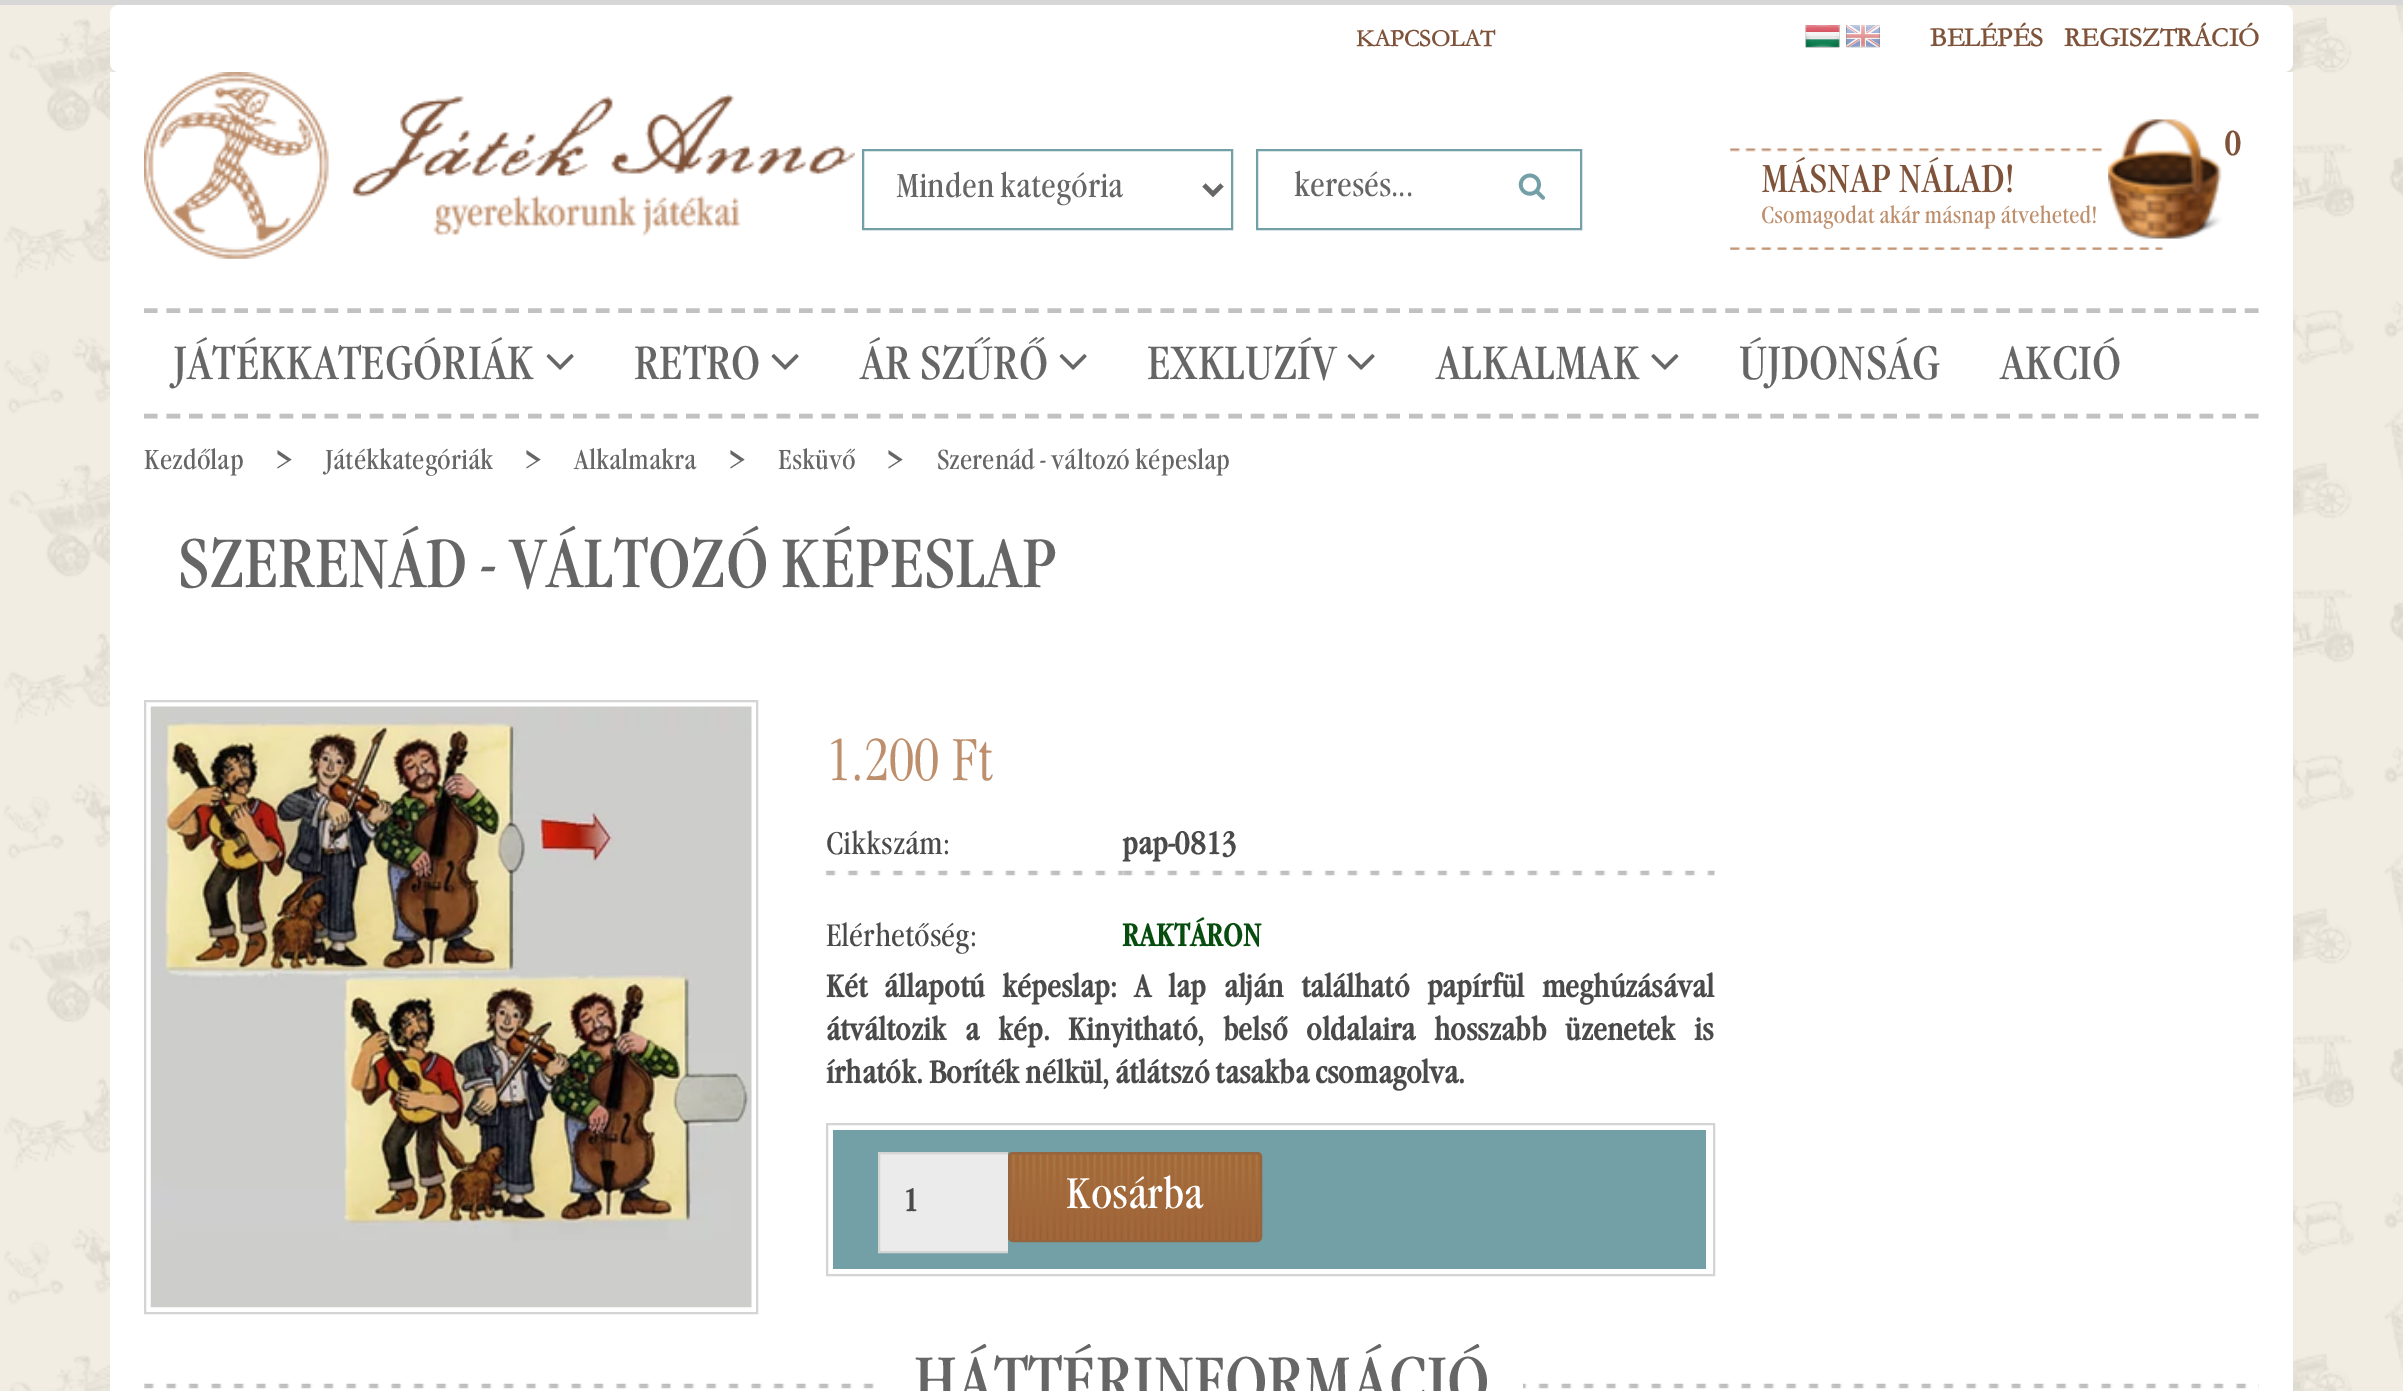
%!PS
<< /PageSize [2403 1391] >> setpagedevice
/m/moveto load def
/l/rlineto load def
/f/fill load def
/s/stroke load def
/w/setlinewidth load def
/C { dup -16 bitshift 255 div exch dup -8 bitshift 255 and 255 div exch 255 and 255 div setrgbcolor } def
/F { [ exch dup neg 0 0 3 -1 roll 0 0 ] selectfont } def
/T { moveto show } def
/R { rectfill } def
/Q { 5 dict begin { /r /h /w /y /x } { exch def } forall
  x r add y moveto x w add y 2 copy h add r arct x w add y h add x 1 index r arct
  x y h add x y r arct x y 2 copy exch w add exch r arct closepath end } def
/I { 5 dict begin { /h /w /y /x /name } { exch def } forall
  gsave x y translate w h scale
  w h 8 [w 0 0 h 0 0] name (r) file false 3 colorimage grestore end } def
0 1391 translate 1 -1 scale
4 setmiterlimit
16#F2EDE2 C
0 0 2403 1391 R
(1.rgb) 3 5 2400 1386 I
16#D7D7D7 C
0 0 2403 5 R
16#FFFFFF C
110 5 2183 67 9 Q f
/Garamond-Bold 24.25 F
16#7F533A C
(KAPCSOLAT) 1356 46 T
(2.rgb) 1805 25 35 23 I
(3.rgb) 1846 25 34 23 I
/Garamond-Bold 27 F
(BELÉPÉS) 1930 46 T
(REGISZTRÁCIÓ) 2064 46 T
16#FFFFFF C
110 72 2183 1319 R
(4.rgb) 144 72 711 187 I
16#739FA7 C
2 w
863 150 369 79 rectstroke
16#666666 C
4.5 w
1204 185 m 9 9 l 9 -9 l s
/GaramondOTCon-Regular 34.5 F
(Minden kategória) 896 197 T
16#739FA7 C
2 w
1257 150 324 79 rectstroke
16#666666 C
(keresés...) 1294 196 T
(5.rgb) 1518 173 27 27 I
/GaramondOTCon-Regular 40.5 F
16#7F533A C
(MÁSNAP NÁLAD!) 1761 192 T
/GaramondOTCon-Regular 24.25 F
16#BE8F6D C
(Csomagodat akár másnap átveheted!) 1761 223 T
(7.rgb) 1730 148 433 102 I
16#FFFFFF C
2108 148 55 4 R
(6.rgb) 2108 119 114 120 I
/GaramondOTCon-Bold 34.5 F
16#7F533A C
(0) 2224 155 T
16#C1C1C1 C
4.5 w
[13.5 9.09] 0 setdash
144 310.5 m 2115 0 l s
144 416 m 2115 0 l s
/GaramondOTCon-Regular 48.5 F
16#666666 C
(JÁTÉKKATEGÓRIÁK) 173 379 T
(8.rgb) 546 354 28 16 I
(RETRO) 634 379 T
(8.rgb) 771 354 28 16 I
(ÁR SZŰRŐ) 860 379 T
(8.rgb) 1059 354 28 16 I
(EXKLUZÍV) 1147 379 T
(8.rgb) 1347 354 28 16 I
(ALKALMAK) 1436 379 T
(9.rgb) 1651 354 28 16 I
(ÚJDONSÁG) 1739 379 T
(AKCIÓ) 2000 379 T
/GaramondOTCon-Regular 28.4 F
(Kezdőlap) 144 469 T
/GaramondOTCon-Regular 34 F
(>) 276 471 T
/GaramondOTCon-Regular 28.4 F
(Játékkategóriák) 325 469 T
/GaramondOTCon-Regular 34 F
(>) 525 471 T
/GaramondOTCon-Regular 28.4 F
(Alkalmakra) 574 469 T
/GaramondOTCon-Regular 34 F
(>) 729 471 T
/GaramondOTCon-Regular 28.4 F
(Esküvő) 778 469 T
/GaramondOTCon-Regular 34 F
(>) 887 471 T
/GaramondOTCon-Regular 28.4 F
(Szerenád - változó képeslap) 937 469 T
/GaramondOTCon-Regular 70.9 F
(SZERENÁD - VÁLTOZÓ KÉPESLAP) 178 587 T
16#D3D4D4 C
2 w
[] 0 setdash
145 701 612 612 rectstroke
(10.rgb) 150 706 602 602 I
/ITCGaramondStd-Light 65 F
16#BE8F6D C
(1.200 Ft) 826 780 T
/GaramondOTCon-Regular 32.4 F
16#4A4A4A C
(Cikkszám:) 826 854 T
/GaramondOTCon-Bold 32.4 F
(pap-0813) 1122 854 T
(11.rgb) 825 870 298 6 I
/GaramondOTCon-Regular 32.4 F
(Elérhetőség:) 826 946 T
(12.rgb) 1122 870 593 6 I
/GaramondOTCon-Bold 32.4 F
16#084D10 C
(RAKTÁRON) 1122 946 T
16#4A4A4A C
826 997 m 11.25 0 32 (Két állapotú képeslap: A lap alján található papírfül meghúzásával) widthshow
826 1040 m 12.75 0 32 (átváltozik a kép. Kinyitható, belső oldalaira hosszabb üzenetek is) widthshow
(írhatók. Boríték nélkül, átlátszó tasakba csomagolva.) 826 1083 T
16#D3D4D4 C
827 1124 887 151 rectstroke
16#739FA7 C
833 1130 175 139 R
16#EBEBEB C
880 1154 128 97 R
16#D3D4D4 C
879 1153 133 99 rectstroke
16#4A4A4A C
(1) 903 1211 T
16#739FA7 C
1008 1130 698 139 R
16#A3673A C
1008 1152 254 90 5 Q f
(13.rgb) 1008 1152 255 90 I
16#94653E C
1009 1153 252 88 4 Q s
/GaramondOTCon-Regular 44.5 F
16#FFFFFF C
(Kosárba) 1066 1208 T
(14.rgb) 144 1383 2115 6 I
885 1383 638 6 R
/GaramondOTCon-Regular 70.9 F
16#666666 C
(HÁTTÉRINFORMÁCIÓ) 914 1405 T
showpage
